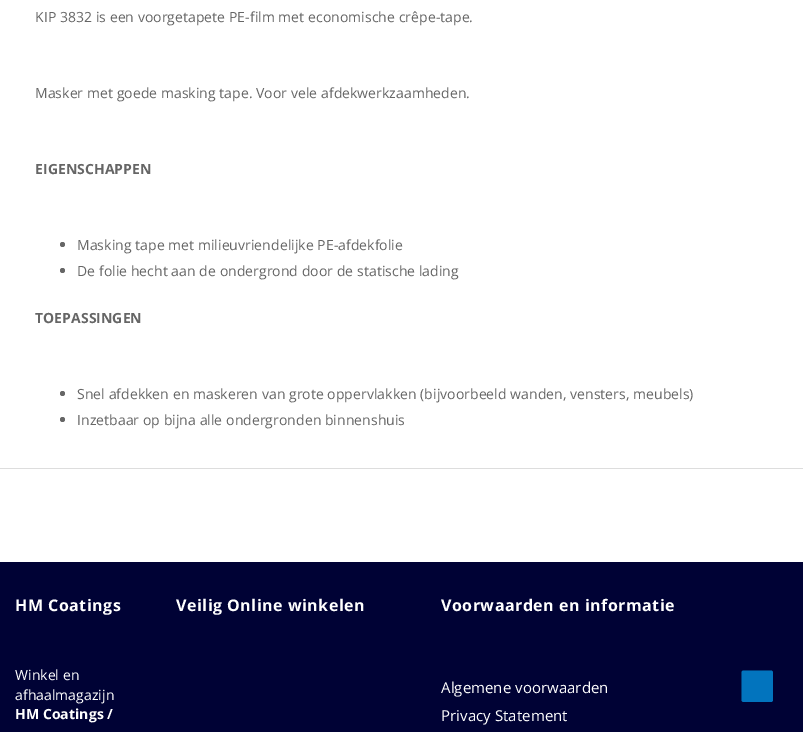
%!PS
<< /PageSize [803 732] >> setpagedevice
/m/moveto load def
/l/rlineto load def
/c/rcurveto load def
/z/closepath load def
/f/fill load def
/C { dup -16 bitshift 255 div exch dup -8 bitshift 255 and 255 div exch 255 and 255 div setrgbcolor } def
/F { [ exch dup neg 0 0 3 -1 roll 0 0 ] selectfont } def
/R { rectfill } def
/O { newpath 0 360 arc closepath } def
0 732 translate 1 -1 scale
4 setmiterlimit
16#FFFFFF C
0 0 803 732 R
/OpenSans-Regular 14 F
16#666666 C
35 22 m .05 0 (KIP 3832 is een voorgetapete PE-film met economische crêpe-tape.) ashow
35 98 m .05 0 (Masker met goede masking tape. Voor vele afdekwerkzaamheden.) ashow
/OpenSans-Bold 14 F
35 174 m .05 0 (EIGENSCHAPPEN) ashow
62.5 244.5 2.5 O f
/OpenSans-Regular 14 F
77 250 m .05 0 (Masking tape met milieuvriendelijke PE-afdekfolie) ashow
62.5 270.5 2.5 O f
77 276 m .05 0 (De folie hecht aan de ondergrond door de statische lading) ashow
/OpenSans-Bold 14 F
35 323 m .05 0 (TOEPASSINGEN) ashow
62.5 393.5 2.5 O f
/OpenSans-Regular 14 F
77 399 m .05 0 (Snel afdekken en maskeren van grote oppervlakken \(bijvoorbeeld wanden, vensters, meubels\)) ashow
62.5 419.5 2.5 O f
77 425 m .05 0 (Inzetbaar op bijna alle ondergronden binnenshuis) ashow
16#DDDDDD C
0 468 803 1 R
16#000235 C
0 562 803 170 R
/OpenSans-Bold 16 F
16#FFFFFF C
15 611 m .5 0 (HM Coatings) ashow
/OpenSans-Regular 14 F
15 680 m .05 0 (Winkel en) ashow
15 700 m .05 0 (afhaalmagazijn) ashow
/OpenSans-Bold 14 F
15 719 m .05 0 (HM Coatings /) ashow
/OpenSans-Bold 16 F
176 611 m .5 0 (Veilig Online winkelen) ashow
441 611 m .5 0 (Voorwaarden en informatie) ashow
/OpenSans-Regular 15 F
441 693 m .05 0 (Algemene voorwaarden) ashow
441 721 m .05 0 (Privacy Statement) ashow
16#0274BE C
771 702 m -27.5 0 l -1 0 -2 -1 -2 -2 c 0 -27.5 l 0 -1 1 -2 2 -2 c 27.5 0 l 1 0 2 1 2 2 c 0 27.5 l 0 1 -1 2 -2 2 c z f
showpage
